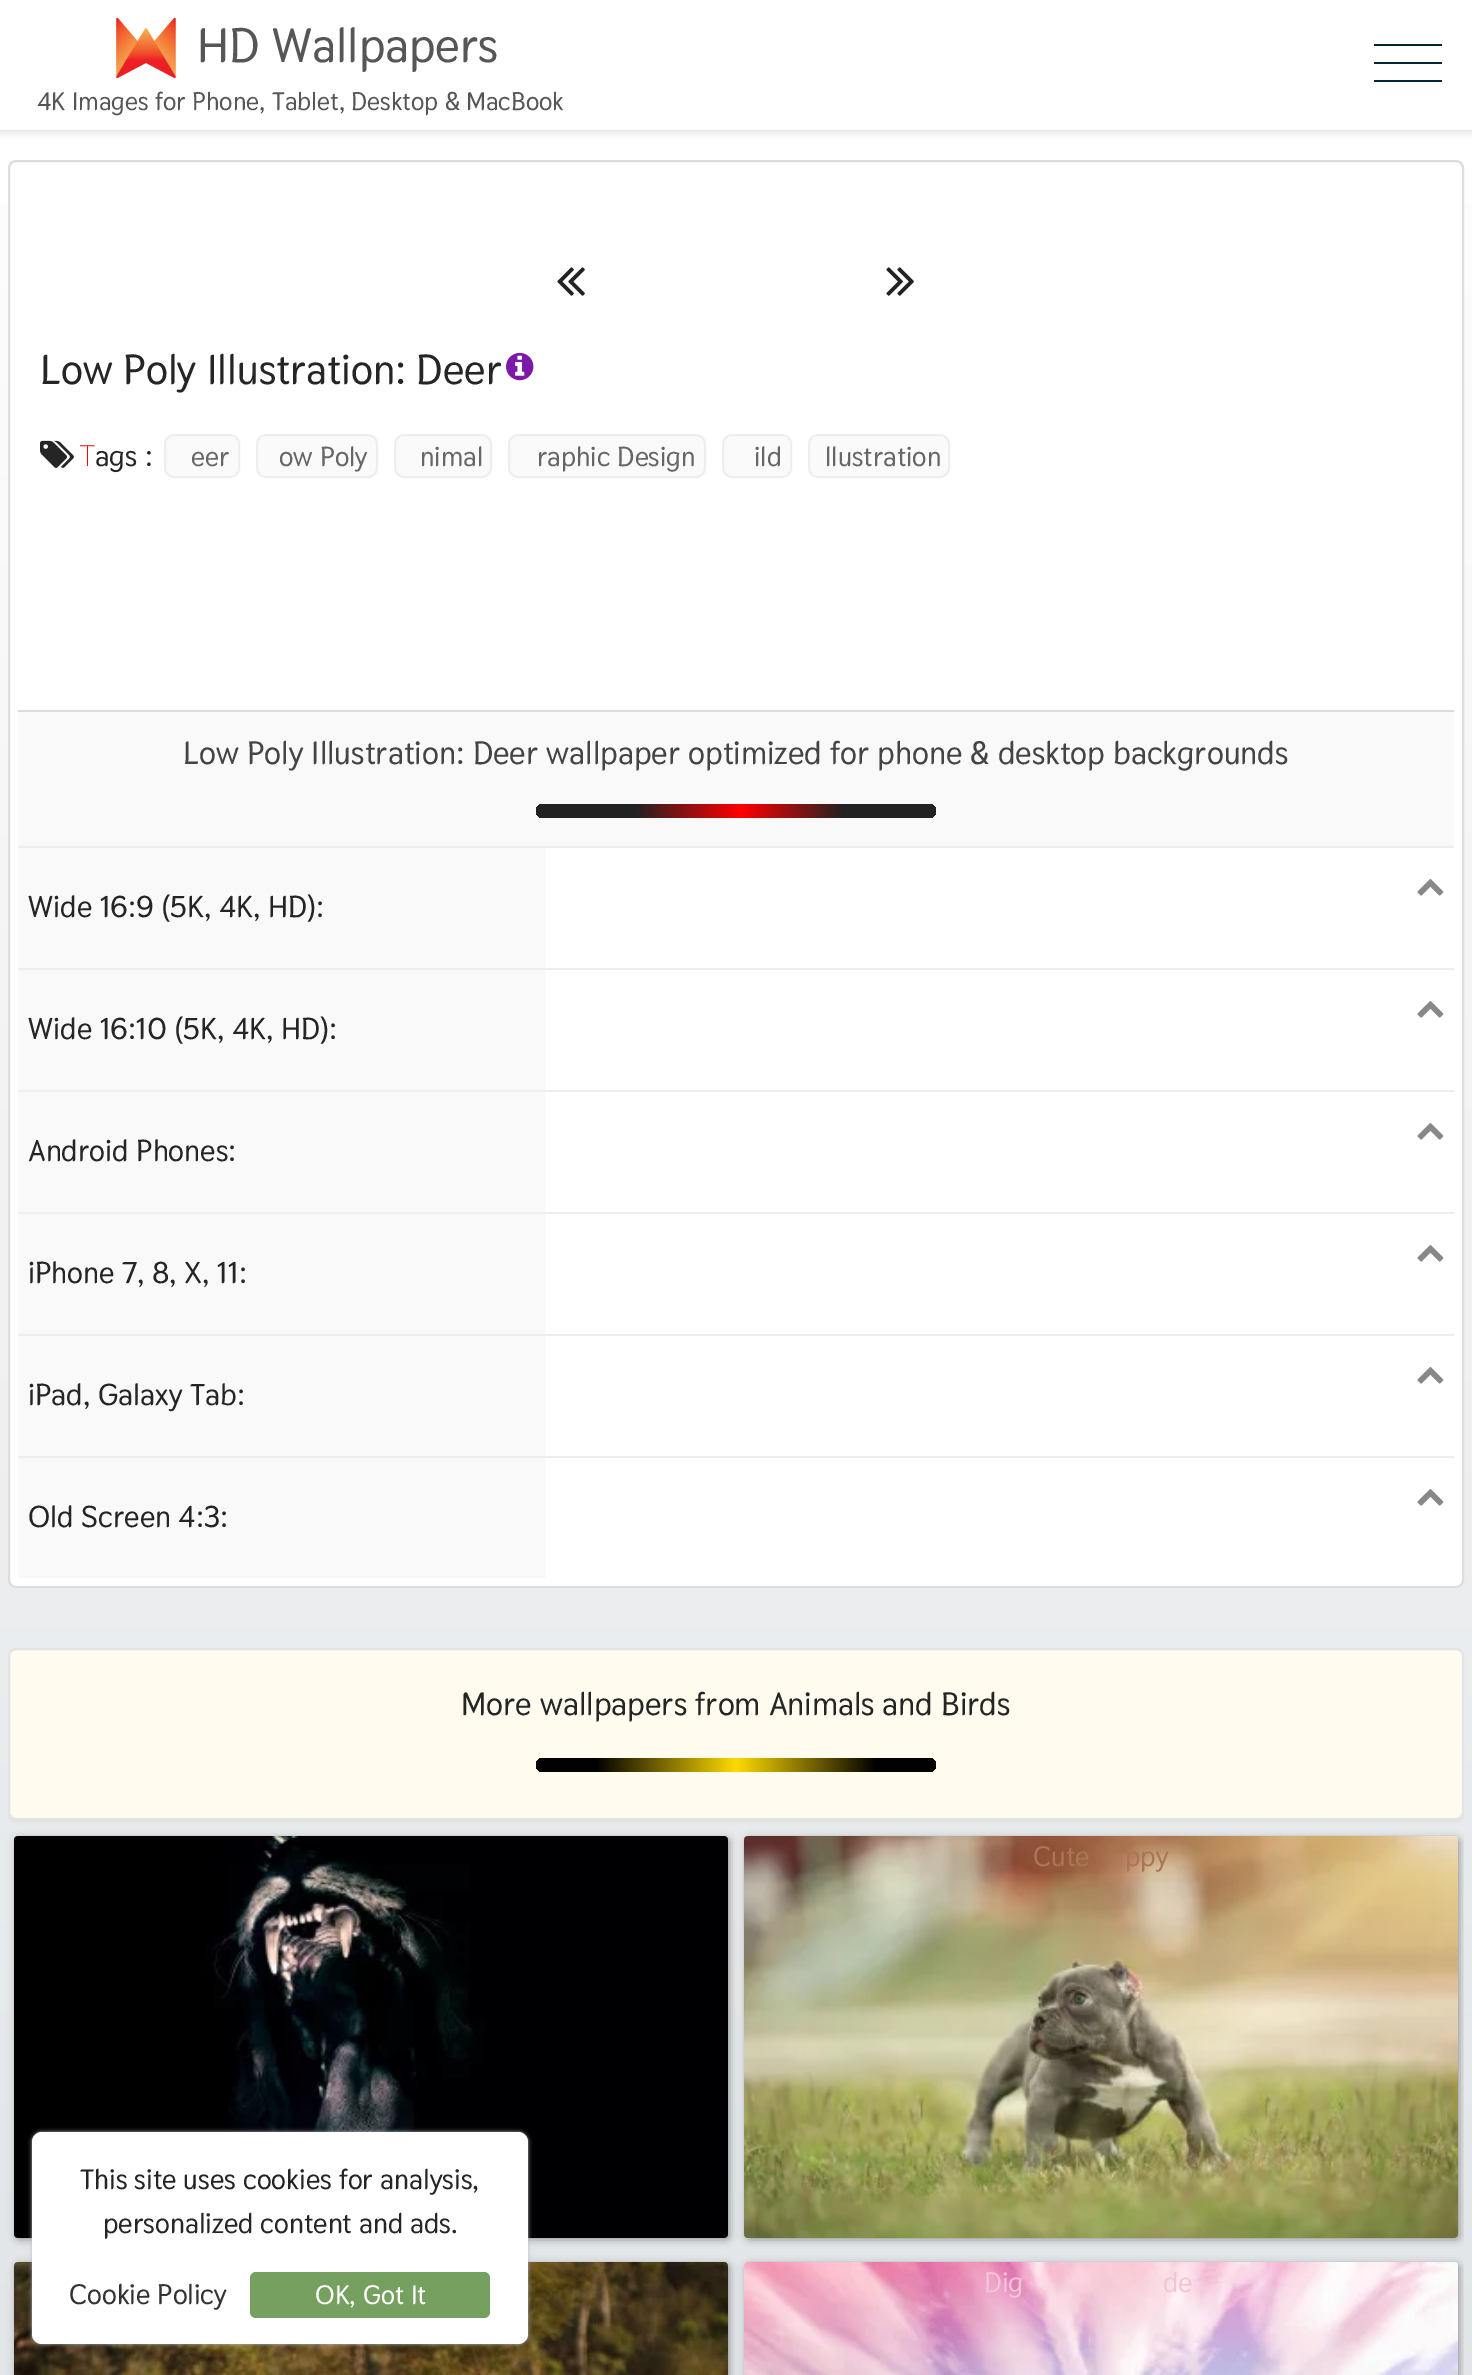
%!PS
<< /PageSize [1472 2375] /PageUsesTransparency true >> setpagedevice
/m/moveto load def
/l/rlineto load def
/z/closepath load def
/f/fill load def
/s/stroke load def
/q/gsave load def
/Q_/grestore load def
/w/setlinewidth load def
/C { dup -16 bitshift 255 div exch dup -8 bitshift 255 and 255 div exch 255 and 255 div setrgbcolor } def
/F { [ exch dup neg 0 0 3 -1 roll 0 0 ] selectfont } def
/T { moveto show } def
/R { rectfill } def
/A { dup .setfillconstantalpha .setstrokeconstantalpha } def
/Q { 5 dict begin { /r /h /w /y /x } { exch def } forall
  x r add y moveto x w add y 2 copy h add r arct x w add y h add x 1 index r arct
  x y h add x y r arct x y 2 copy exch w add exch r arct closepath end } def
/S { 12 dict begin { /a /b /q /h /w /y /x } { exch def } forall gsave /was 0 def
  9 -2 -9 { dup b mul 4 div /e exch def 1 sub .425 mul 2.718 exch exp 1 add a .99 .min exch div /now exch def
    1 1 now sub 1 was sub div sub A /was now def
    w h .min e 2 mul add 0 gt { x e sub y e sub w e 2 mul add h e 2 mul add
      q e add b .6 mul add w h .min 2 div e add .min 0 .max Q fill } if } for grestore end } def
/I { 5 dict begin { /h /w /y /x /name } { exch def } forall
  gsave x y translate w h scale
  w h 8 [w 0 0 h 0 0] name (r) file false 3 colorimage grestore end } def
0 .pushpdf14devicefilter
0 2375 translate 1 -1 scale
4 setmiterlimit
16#FFFFFF C
0 0 1472 2375 R
q 0 203 m 1472 0 l 0 2172 l -1472 0 l z clip newpath
<< /ShadingType 2 /ColorSpace /DeviceRGB /Coords [736 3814 736 0] /Extend [true true] /Function << /FunctionType 2 /Domain [0 1] /C0 [.816 .839 .855] /C1 [1 1 1] /N 1 >> >> shfill Q_
q
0 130 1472 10 rectclip
16#CCCCCC C
0 0 1472 130 0 5 1 S
Q_
(1.rgb) 116 17 60 62 I
/Thasadith-Bold 48 F
16#565656 C
(HD Wallpapers) 197 62 T
/Thasadith-Bold 25.25 F
(4K Images for Phone, Tablet, Desktop & MacBook) 37 110 T
16#012831 C
1374 44 68 2 R
1374 62 68 2 R
1374 80 68 2 R
16#FFFFFF C
9 161 1454 1426 7 Q q f Q_
16#DDDDDD C
2 w
s
(2.rgb) 557 267 28 29 I
(3.rgb) 886 267 28 29 I
/Thasadith-Bold 41.6 F
16#252525 C
(Low Poly Illustration: Deer) 40 384 T
(4.rgb) 506 352 28 29 I
(5.rgb) 40 440 34 28 I
/NotoSans-ExtraLight 29 F
16#FF0000 C
(T) 80 466 T
/Thasadith-Bold 29 F
16#252525 C
(ags :) 95 466 T
16#FAFAFA C
165 435 74 42 9 Q q f Q_
16#EEEEEE C
s
/Thasadith-Bold 27.25 F
16#666666 C
(eer) 191 466 T
16#FAFAFA C
257 435 120 42 9 Q q f Q_
16#EEEEEE C
s
16#666666 C
(ow Poly) 279 466 T
16#FAFAFA C
395 435 96 42 9 Q q f Q_
16#EEEEEE C
s
16#666666 C
(nimal) 420 466 T
16#FAFAFA C
509 435 196 42 9 Q q f Q_
16#EEEEEE C
s
16#666666 C
(raphic Design) 537 466 T
16#FAFAFA C
723 435 68 42 9 Q q f Q_
16#EEEEEE C
s
16#666666 C
(ild) 754 466 T
16#FAFAFA C
809 435 140 42 9 Q q f Q_
16#EEEEEE C
s
16#666666 C
(llustration) 825 466 T
16#F9F9F9 C
18 712 1436 134 R
16#DDDDDD C
18 710 1436 2 R
/Thasadith-Bold 32 F
16#444444 C
(Low Poly Illustration: Deer wallpaper optimized for phone & desktop backgrounds) 183 764 T
q 536 804 400 14 7 Q clip newpath
<< /ShadingType 2 /ColorSpace /DeviceRGB /Coords [536 811 936 811] /Extend [true true] /Function << /FunctionType 3 /Domain [0 1] /Functions [<< /FunctionType 2 /Domain [0 1] /C0 [.133 .133 .133] /C1 [.133 .133 .133] /N 1 >> << /FunctionType 2 /Domain [0 1] /C0 [.133 .133 .133] /C1 [1 0 0] /N 1 >> << /FunctionType 2 /Domain [0 1] /C0 [1 0 0] /C1 [.133 .133 .133] /N 1 >> << /FunctionType 2 /Domain [0 1] /C0 [.133 .133 .133] /C1 [.133 .133 .133] /N 1 >>] /Bounds [.25 .51 .77] /Encode [0 1 0 1 0 1 0 1] >> >> shfill Q_
16#EEEEEE C
18 846 1436 2 R
(6.rgb) 1417 879 27 17 I
16#F9F9F9 C
18 848 528 120 R
/Thasadith-Bold 30 F
16#252525 C
(Wide 16:9 \(5K, 4K, HD\):) 28 917 T
16#EEEEEE C
18 968 1436 2 R
(6.rgb) 1417 1001 27 17 I
16#F9F9F9 C
18 970 528 120 R
16#252525 C
(Wide 16:10 \(5K, 4K, HD\):) 28 1039 T
16#EEEEEE C
18 1090 1436 2 R
(6.rgb) 1417 1123 27 17 I
16#F9F9F9 C
18 1092 528 120 R
16#252525 C
(Android Phones:) 28 1161 T
16#EEEEEE C
18 1212 1436 2 R
(6.rgb) 1417 1245 27 17 I
16#F9F9F9 C
18 1214 528 120 R
16#252525 C
(iPhone 7, 8, X, 11:) 28 1283 T
16#EEEEEE C
18 1334 1436 2 R
(6.rgb) 1417 1367 27 17 I
16#F9F9F9 C
18 1336 528 120 R
16#252525 C
(iPad, Galaxy Tab:) 28 1405 T
16#EEEEEE C
18 1456 1436 2 R
(6.rgb) 1417 1489 27 17 I
16#F9F9F9 C
18 1458 528 120 R
16#252525 C
(Old Screen 4:3:) 28 1527 T
q
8 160 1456 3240 rectclip
16#DDDDDD C
8 1650 1456 172 8 2 1 S
Q_
16#FFFCEF C
9 1649 1454 170 7 Q q f Q_
16#E4E4E4 C
s
/Thasadith-Bold 32 F
16#252525 C
(More wallpapers from Animals and Birds) 461 1715 T
q 536 1758 400 14 7 Q clip newpath
<< /ShadingType 2 /ColorSpace /DeviceRGB /Coords [536 1765 936 1765] /Extend [true true] /Function << /FunctionType 3 /Domain [0 1] /Functions [<< /FunctionType 2 /Domain [0 1] /C0 [0 0 0] /C1 [0 0 0] /N 1 >> << /FunctionType 2 /Domain [0 1] /C0 [0 0 0] /C1 [1 .855 0] /N 1 >> << /FunctionType 2 /Domain [0 1] /C0 [1 .855 0] /C1 [0 0 0] /N 1 >> << /FunctionType 2 /Domain [0 1] /C0 [0 0 0] /C1 [0 0 0] /N 1 >>] /Bounds [.15 .5 .85] /Encode [0 1 0 1 0 1 0 1] >> >> shfill Q_
16#999999 C
16 1838 714 402 4 4 1 S
(7.rgb) 14 1836 714 402 I
q
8 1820 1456 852 rectclip
746 1838 714 402 4 4 1 S
Q_
(8.rgb) 744 1836 714 402 I
/Thasadith-Bold 28 F
16#AA7656 C
(Cute) 1033 1866 T
(ppy) 1125 1866 T
16#999999 C
16 2264 714 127 4 4 1 S
(9.rgb) 14 2262 714 113 I
q
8 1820 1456 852 rectclip
746 2264 714 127 4 4 1 S
Q_
(10.rgb) 744 2262 714 113 I
16#F4C3D7 C
(Dig) 984 2292 T
(de) 1163 2292 T
16#BBBBBB C
32 2132 496 212 10 2 1 S
16#FFFFFF C
32 2132 496 212 10 Q f
16#252525 C
(This site uses cookies for analysis,) 80 2189 T
(personalized content and ads.) 103 2233 T
16#333333 C
(Cookie Policy) 69 2304 T
16#76A060 C
250 2272 240 46 6 Q f
/Thasadith-Bold 26.5 F
16#FFFFFF C
(OK, Got It) 315 2304 T
.poppdf14devicefilter showpage
